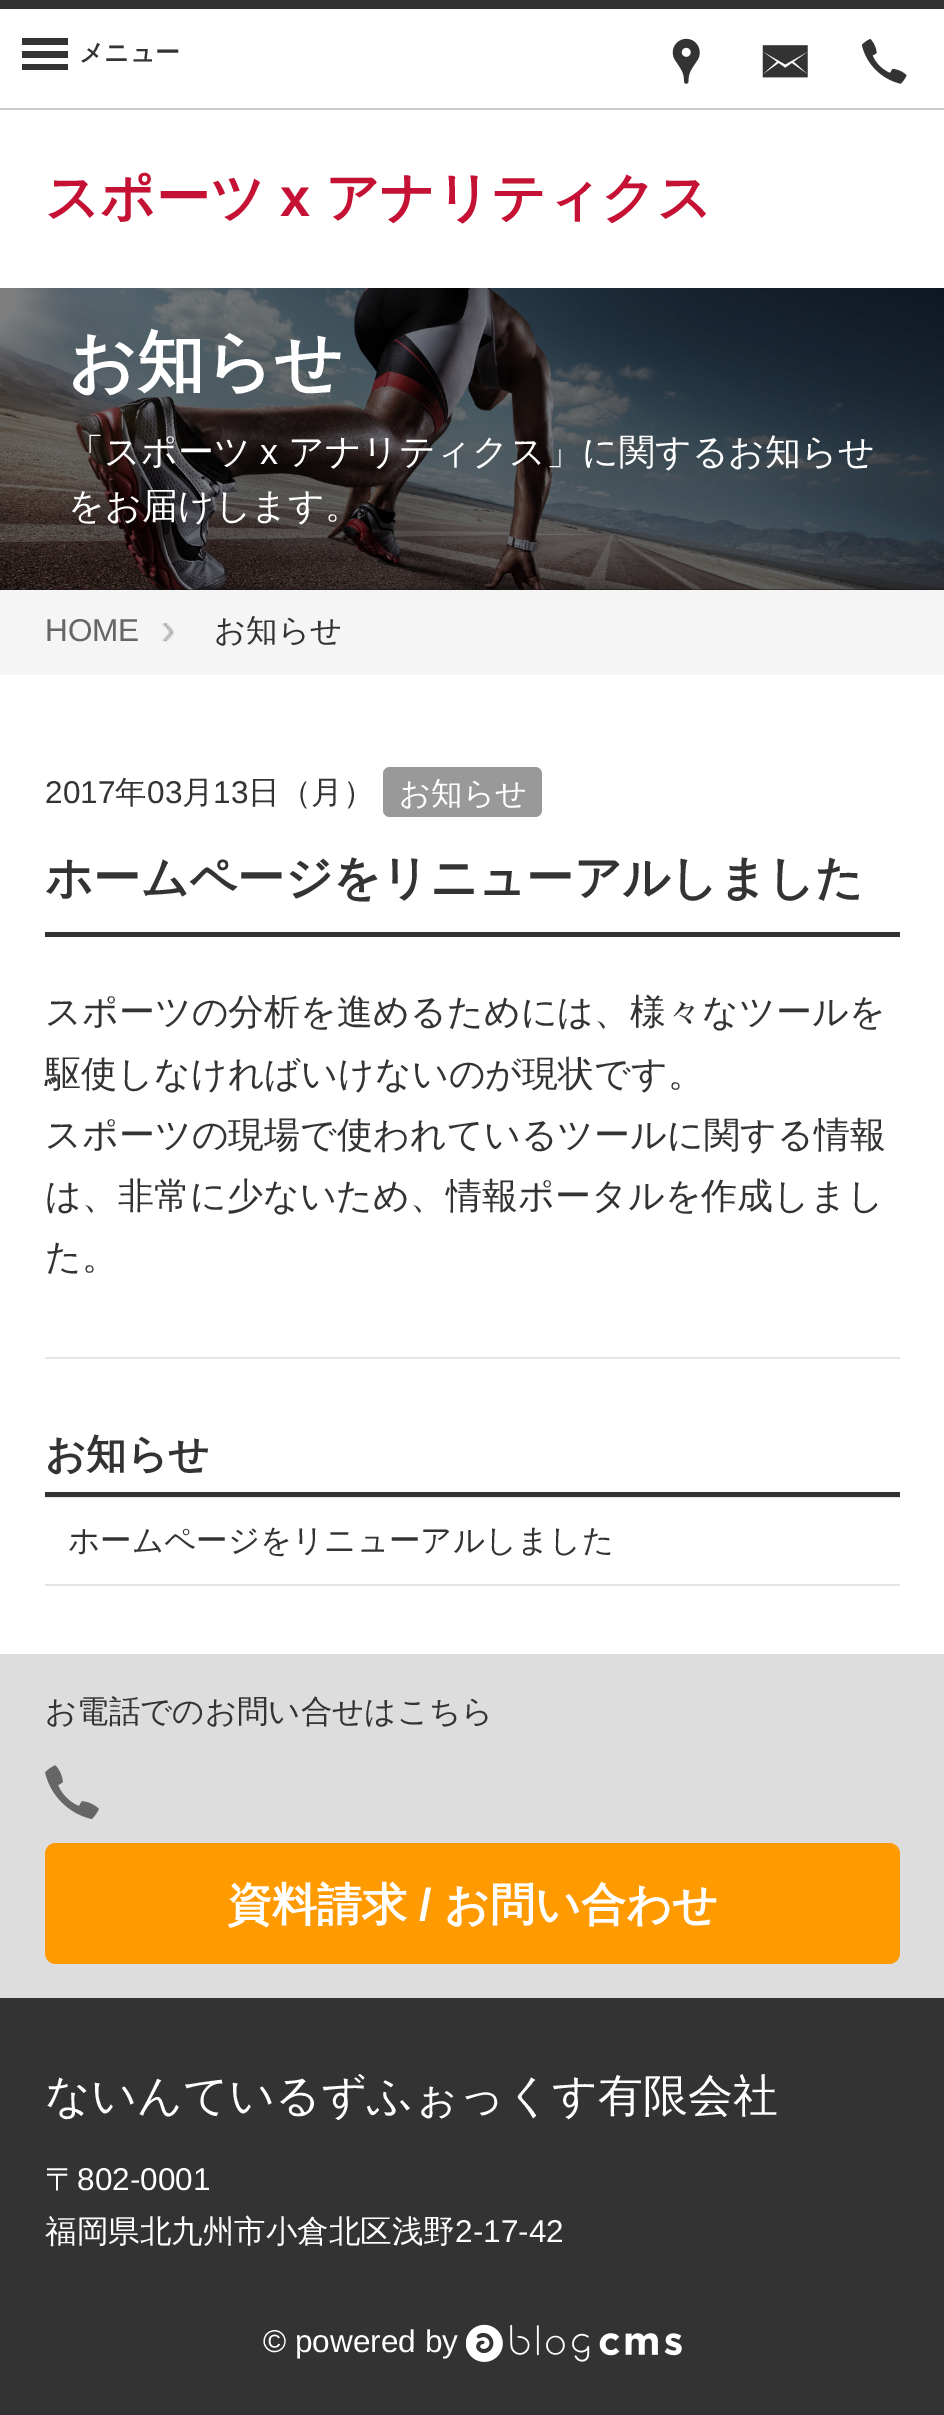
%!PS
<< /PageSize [944 2415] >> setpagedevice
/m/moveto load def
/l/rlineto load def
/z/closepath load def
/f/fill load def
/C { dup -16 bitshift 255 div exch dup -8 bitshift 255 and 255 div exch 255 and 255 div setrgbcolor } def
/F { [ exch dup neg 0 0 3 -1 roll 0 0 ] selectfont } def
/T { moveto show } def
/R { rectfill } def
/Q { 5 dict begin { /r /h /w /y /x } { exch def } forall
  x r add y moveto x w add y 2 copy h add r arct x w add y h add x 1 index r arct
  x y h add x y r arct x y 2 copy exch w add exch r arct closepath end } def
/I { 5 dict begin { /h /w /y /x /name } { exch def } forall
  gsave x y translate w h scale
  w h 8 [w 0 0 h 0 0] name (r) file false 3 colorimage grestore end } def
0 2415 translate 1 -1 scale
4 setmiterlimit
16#FFFFFF C
0 0 944 2415 R
16#333333 C
0 0 944 9 R
16#CCCCCC C
0 108 944 2 R
16#333333 C
22 38 m 46 0 l 0 7 l -46 0 l z 22 51 m 46 0 l 0 7 l -46 0 l z 22 64 m 46 0 l 0 6 l -46 0 l z f
/WenQuanYiZenHei-Bold 24.75 F
(メニュー) 79 61 T
(1.rgb) 672 38 28 46 I
(2.rgb) 762 45 46 33 I
(3.rgb) 861 38 46 46 I
/WenQuanYiZenHei-Bold 54 F
16#C41134 C
(スポーツ) 45 216 T
/LiberationSans-Bold 54 F
(x) 280 216 T
/WenQuanYiZenHei-Bold 54 F
(アナリティクス) 325 216 T
16#1A1A1A C
0 589 944 1 R
(4.rgb) 0 288 944 302 I
/WenQuanYiZenHei-Bold 67.5 F
16#FFFFFF C
(お知らせ) 68 385 T
/WenQuanYiZenHei-Medium 36 F
(「スポーツ) 68 464 T
/LiberationSans-Regular 36 F
(x) 260 464 T
/WenQuanYiZenHei-Medium 36 F
(アナリティクス」に関するお知らせ) 288 464 T
(をお届けします。) 68 518 T
16#F5F5F5 C
0 590 944 85 R
/LiberationSans-Regular 31.5 F
16#666666 C
(HOME) 45 641 T
(5.rgb) 162 623 12 19 I
/WenQuanYiZenHei-Medium 31.5 F
16#333333 C
(お知らせ) 214 641 T
16#E5E5E5 C
45 1357 855 2 R
16#333333 C
45 932 855 5 R
/LiberationSans-Regular 31.5 F
(2017) 45 803 T
/WenQuanYiZenHei-Medium 31.5 F
(年) 115 803 T
/LiberationSans-Regular 31.5 F
(03) 147 803 T
/WenQuanYiZenHei-Medium 31.5 F
(月) 182 803 T
/LiberationSans-Regular 31.5 F
(13) 213 803 T
/WenQuanYiZenHei-Medium 31.5 F
(日（月）) 248 803 T
16#999999 C
383 767 159 50 7 Q f
16#FFFFFF C
(お知らせ) 399 804 T
/WenQuanYiZenHei-Bold 47.25 F
16#333333 C
(ホームページをリニューアルしました) 45 894 T
/WenQuanYiZenHei-Medium 36 F
(スポーツの分析を進めるためには、様々なツールを) 45 1024 T
(駆使しなければいけないのが現状です。) 45 1086 T
(スポーツの現場で使われているツールに関する情報) 45 1147 T
(は、非常に少ないため、情報ポータルを作成しまし) 45 1208 T
(た。) 45 1269 T
45 1492 855 5 R
/WenQuanYiZenHei-Bold 40.5 F
(お知らせ) 45 1468 T
16#E5E5E5 C
45 1497 855 1 R
45 1584 855 2 R
/WenQuanYiZenHei-Medium 31.5 F
16#333333 C
(ホームページをリニューアルしました) 68 1551 T
16#DDDDDD C
0 1654 944 344 R
16#333333 C
(お電話でのお問い合せはこちら) 45 1722 T
(6.rgb) 45 1765 54 55 I
16#FF9A00 C
45 1843 855 121 11 Q f
/WenQuanYiZenHei-Bold 45 F
16#FFFFFF C
(資料請求) 227 1920 T
/LiberationSans-Bold 45 F
(/) 419 1920 T
/WenQuanYiZenHei-Bold 45 F
(お問い合わせ) 444 1920 T
16#333333 C
0 1998 944 417 R
/WenQuanYiZenHei-Medium 45 F
16#FFFFFF C
(ないんているずふぉっくす有限会社) 45 2111 T
/WenQuanYiZenHei-Medium 31.5 F
(〒) 45 2190 T
/LiberationSans-Regular 31.5 F
(802-0001) 77 2190 T
/WenQuanYiZenHei-Medium 31.5 F
(福岡県北九州市小倉北区浅野) 45 2242 T
/LiberationSans-Regular 31.5 F
(2-17-42) 455 2242 T
(© powered by) 263 2352 T
(7.rgb) 466 2324 216 38 I
showpage
